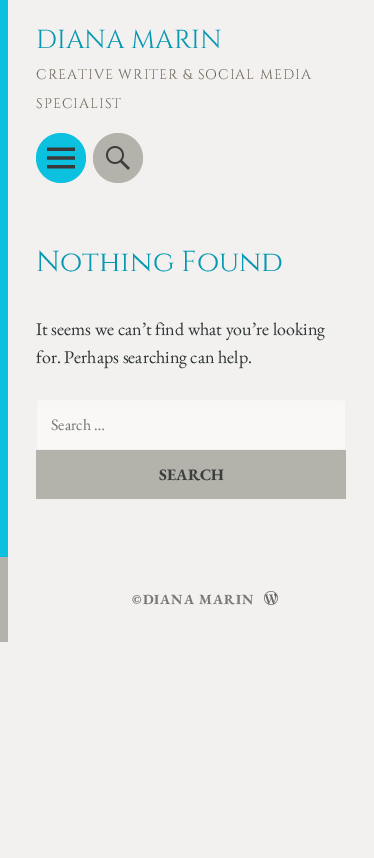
%!PS
<< /PageSize [374 858] >> setpagedevice
/m/moveto load def
/f/fill load def
/s/stroke load def
/q/gsave load def
/Q_/grestore load def
/C { dup -16 bitshift 255 div exch dup -8 bitshift 255 and 255 div exch 255 and 255 div setrgbcolor } def
/F { [ exch dup neg 0 0 3 -1 roll 0 0 ] selectfont } def
/T { moveto show } def
/R { rectfill } def
/O { newpath 0 360 arc closepath } def
/Q { 5 dict begin { /r /h /w /y /x } { exch def } forall
  x r add y moveto x w add y 2 copy h add r arct x w add y h add x 1 index r arct
  x y h add x y r arct x y 2 copy exch w add exch r arct closepath end } def
/I { 5 dict begin { /h /w /y /x /name } { exch def } forall
  gsave x y translate w h scale
  w h 8 [w 0 0 h 0 0] name (r) file false 3 colorimage grestore end } def
0 858 translate 1 -1 scale
4 setmiterlimit
16#F2F1EF C
0 0 374 858 R
/Cinzel-Regular 26 F
16#0498B3 C
(DIANA MARIN) 36 48 T
/Cinzel-Regular 14 F
16#6D6459 C
36 79 m 1 0 (CREATIVE WRITER & SOCIAL MEDIA) ashow
36 108 m 1 0 (SPECIALIST) ashow
16#0CC0DF C
61 158 25 O f
(1.rgb) 47 147 28 22 I
16#B3B3AC C
118 158 25 O f
(2.rgb) 106 146 24 24 I
16#0CC0DF C
0 0 8 557 R
/Cinzel-Regular 28.75 F
16#0498B3 C
(Nothing Found) 36 271 T
/EBGaramond-Regular 18 F
16#2D3433 C
(It seems we can’t find what you’re looking) 36 335 T
(for. Perhaps searching can help.) 36 363 T
16#F9F8F7 C
36.5 399.5 309 50 2.5 Q q f Q_
16#F2F1EF C
s
/EBGaramond-Regular 16 F
16#777777 C
(Search …) 51 430 T
16#B3B3AC C
36 450 310 49 R
/EBGaramond-Bold 16 F
16#3D3D3D C
(SEARCH) 159 480 T
16#B3B3AC C
0 557 8 85 R
/EBGaramond-Bold 14 F
16#777777 C
132 604 m 1 0 (©DIANA MARIN) ashow
(3.rgb) 264 591 14 14 I
showpage
